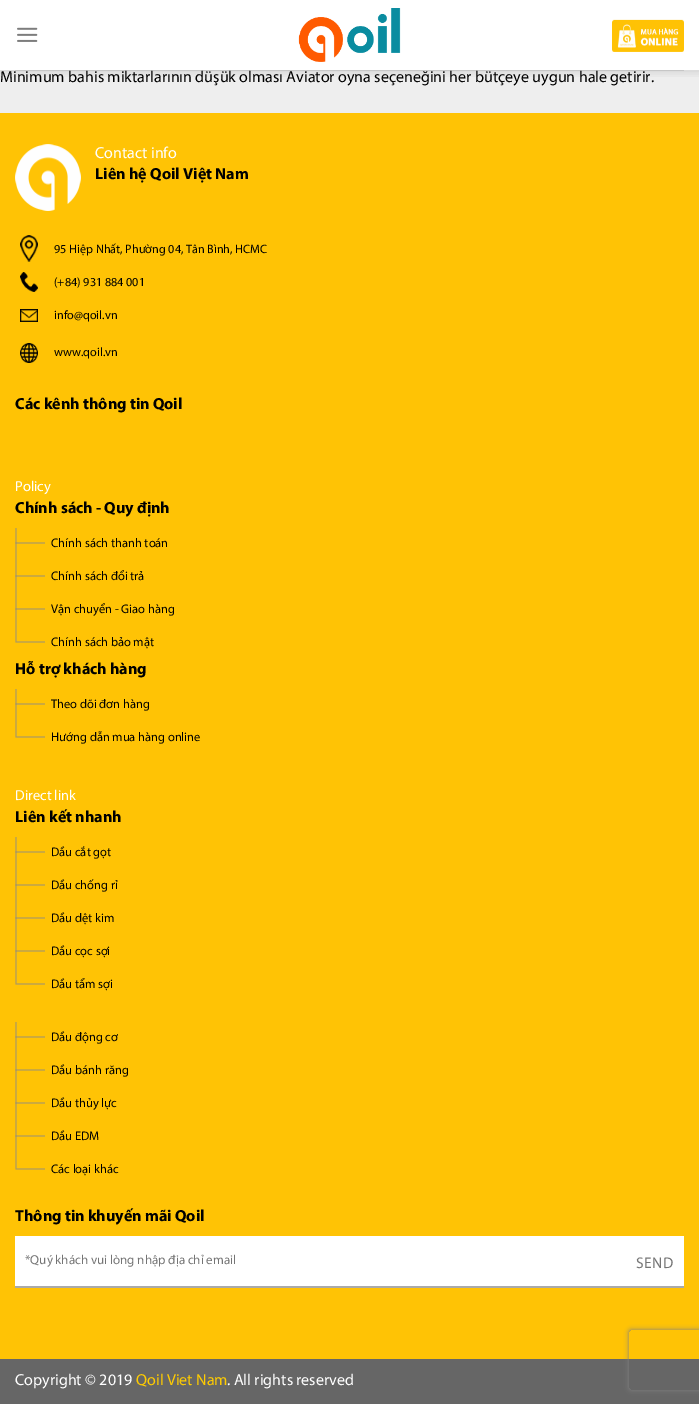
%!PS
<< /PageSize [699 1404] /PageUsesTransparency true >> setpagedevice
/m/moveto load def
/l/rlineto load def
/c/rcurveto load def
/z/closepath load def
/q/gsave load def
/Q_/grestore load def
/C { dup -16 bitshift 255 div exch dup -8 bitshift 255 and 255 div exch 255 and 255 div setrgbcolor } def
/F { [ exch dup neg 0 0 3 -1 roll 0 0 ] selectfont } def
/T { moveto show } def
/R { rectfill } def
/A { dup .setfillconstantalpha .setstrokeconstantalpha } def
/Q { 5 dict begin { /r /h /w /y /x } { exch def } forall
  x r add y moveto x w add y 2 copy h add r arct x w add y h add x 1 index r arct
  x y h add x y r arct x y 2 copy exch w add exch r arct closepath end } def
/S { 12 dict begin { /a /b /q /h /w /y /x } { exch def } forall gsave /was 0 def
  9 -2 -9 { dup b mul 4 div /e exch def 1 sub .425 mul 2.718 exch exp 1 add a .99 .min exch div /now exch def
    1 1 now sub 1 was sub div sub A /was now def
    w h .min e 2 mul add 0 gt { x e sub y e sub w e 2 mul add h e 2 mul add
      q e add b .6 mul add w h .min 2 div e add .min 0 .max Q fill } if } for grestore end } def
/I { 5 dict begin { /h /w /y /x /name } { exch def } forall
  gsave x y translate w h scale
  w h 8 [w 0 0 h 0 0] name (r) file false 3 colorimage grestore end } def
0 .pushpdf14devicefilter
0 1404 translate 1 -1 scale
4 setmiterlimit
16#EEEEEE C
0 0 699 1404 R
16#FFFFFF C
0 0 699 70 R
q
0 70 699 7 rectclip
16#000000 C
1 1 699 70 0 5 .15 S
Q_
(1.rgb) 17 27 21 15 I
(2.rgb) 298 8 103 54 I
(3.rgb) 612 19 72 33 I
0.1 A
16#000000 C
15 70 669 1 R
/Myriad-Regular 16 F
1 A
(Minimum bahis miktarlarının düşük olması Aviator oyna seçeneğini her bütçeye uygun hale getirir.) 0 82 T
16#FFC305 C
0 113 699 1246 R
(4.rgb) 15 144 66 67 I
16#FFFFFF C
(Contact info) 95 158 T
/Myriad-Bold 16.1 F
16#000000 C
(Liên hệ Qoil Việt Nam) 95 179 T
(5.rgb) 20 235 18 27 I
/Myriad-Regular 12.2 F
(95 Hiệp Nhất, Phường 04, Tân Bình, HCMC) 54 253 T
(6.rgb) 20 272 18 20 I
(\(+84\) 931 884 001) 54 286 T
(7.rgb) 20 309 18 13 I
(info@qoil.vn) 54 319 T
(8.rgb) 20 343 18 20 I
(www.qoil.vn) 54 356 T
/Myriad-Bold 16.1 F
(Các kênh thông tin Qoil) 15 409 T
/Myriad-Regular 14.5 F
16#FFFFFF C
(Policy) 15 491 T
/Myriad-Bold 16.1 F
16#000000 C
(Chính sách - Quy định) 15 513 T
(9.rgb) 15 528 30 33 I
/Myriad-Regular 12.5 F
(Chính sách thanh toán) 51 547 T
(9.rgb) 15 561 30 33 I
(Chính sách đổi trả) 51 580 T
(9.rgb) 15 594 30 33 I
(Vận chuyển - Giao hàng) 51 613 T
(10.rgb) 15 627 30 16 I
(Chính sách bảo mật) 51 646 T
/Myriad-Bold 16.1 F
(Hỗ trợ khách hàng) 15 674 T
(9.rgb) 15 689 30 33 I
/Myriad-Regular 12.5 F
(Theo dõi đơn hàng) 51 708 T
(10.rgb) 15 722 30 16 I
(Hướng dẫn mua hàng online) 51 741 T
/Myriad-Regular 14.5 F
16#FFFFFF C
(Direct link) 15 800 T
/Myriad-Bold 16.1 F
16#000000 C
(Liên kết nhanh) 15 822 T
(9.rgb) 15 837 30 33 I
/Myriad-Regular 12.5 F
(Dầu cắt gọt) 51 856 T
(9.rgb) 15 870 30 33 I
(Dầu chống rỉ) 51 889 T
(9.rgb) 15 903 30 33 I
(Dầu dệt kim) 51 922 T
(9.rgb) 15 936 30 33 I
(Dầu cọc sợi) 51 955 T
(10.rgb) 15 969 30 16 I
(Dầu tẩm sợi) 51 988 T
(9.rgb) 15 1022 30 33 I
(Dầu động cơ) 51 1041 T
(9.rgb) 15 1055 30 33 I
(Dầu bánh răng) 51 1074 T
(9.rgb) 15 1088 30 33 I
(Dầu thủy lực) 51 1107 T
(9.rgb) 15 1121 30 33 I
(Dầu EDM) 51 1140 T
(10.rgb) 15 1154 30 16 I
(Các loại khác) 51 1173 T
/Myriad-Bold 16.1 F
(Thông tin khuyến mãi Qoil) 15 1221 T
16#AAAAAA C
15 1286 669 2 R
16#FFFFFF C
15 1236 669 50 R
/Myriad-Regular 13 F
16#757575 C
(*Quý khách vui lòng nhập địa chỉ email) 25 1264 T
/Myriad-Regular 15.5 F
636 1268 m .5 0 (SEND) ashow
16#666666 C
0 1359 699 45 R
/Myriad-Regular 16 F
16#FFFFFF C
(Copyright © 2019) 15 1385 T
16#FFCC00 C
(Qoil Viet Nam) 136 1385 T
16#FFFFFF C
(. All rights reserved) 227 1385 T
q
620 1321 m 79 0 l 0 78 l -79 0 l z 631 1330 m 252 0 l 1 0 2 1 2 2 c 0 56 l 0 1 -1 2 -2 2 c -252 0 l -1 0 -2 -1 -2 -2 c 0 -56 l 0 -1 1 -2 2 -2 c z eoclip newpath
16#808080 C
629 1330 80 60 2 2.5 1 S
Q_
.poppdf14devicefilter showpage
